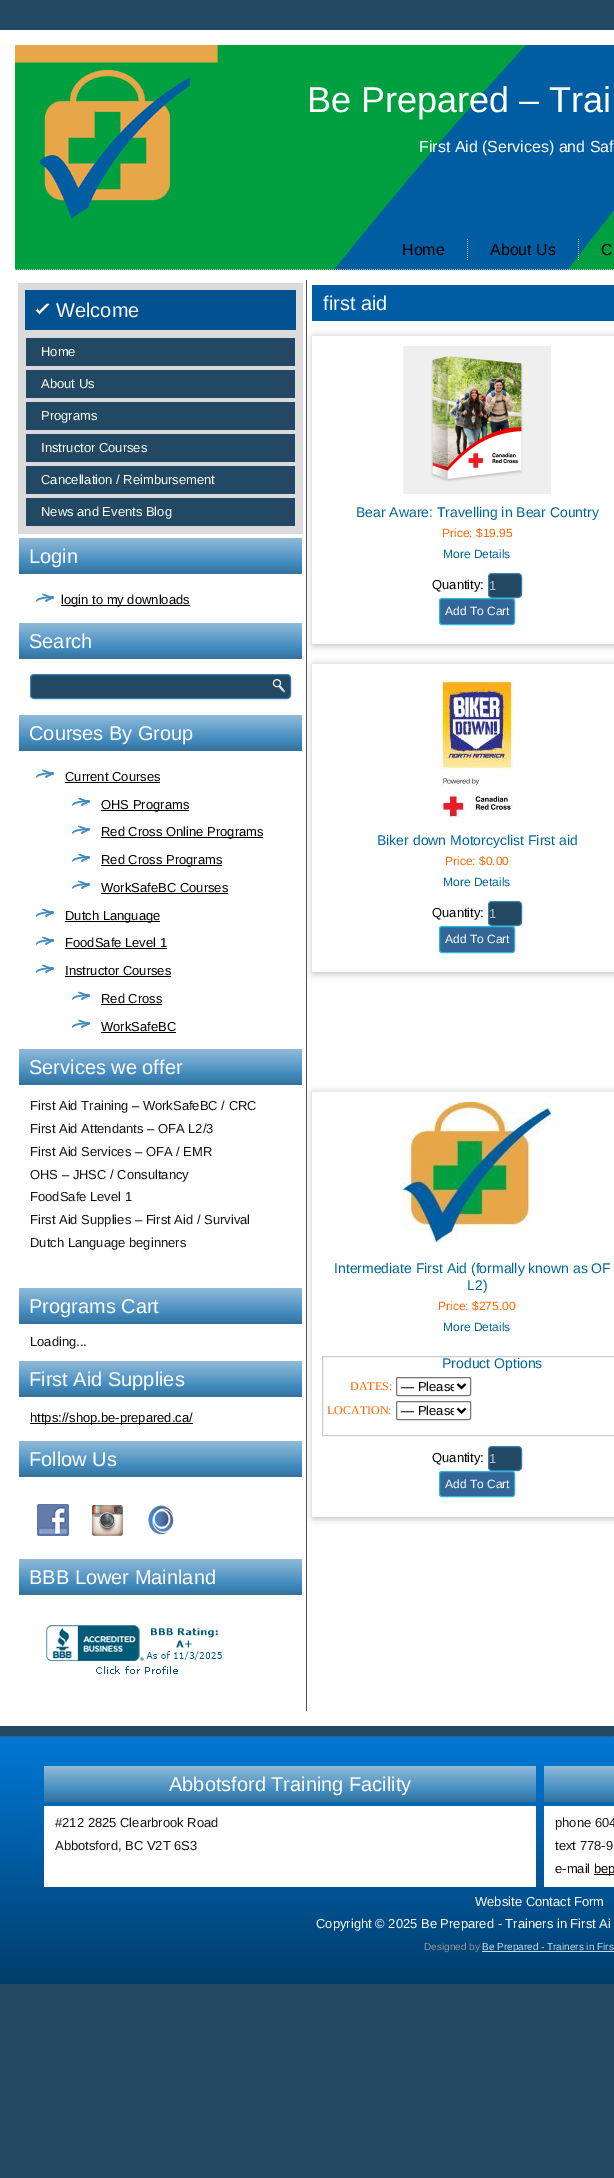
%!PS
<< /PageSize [614 2178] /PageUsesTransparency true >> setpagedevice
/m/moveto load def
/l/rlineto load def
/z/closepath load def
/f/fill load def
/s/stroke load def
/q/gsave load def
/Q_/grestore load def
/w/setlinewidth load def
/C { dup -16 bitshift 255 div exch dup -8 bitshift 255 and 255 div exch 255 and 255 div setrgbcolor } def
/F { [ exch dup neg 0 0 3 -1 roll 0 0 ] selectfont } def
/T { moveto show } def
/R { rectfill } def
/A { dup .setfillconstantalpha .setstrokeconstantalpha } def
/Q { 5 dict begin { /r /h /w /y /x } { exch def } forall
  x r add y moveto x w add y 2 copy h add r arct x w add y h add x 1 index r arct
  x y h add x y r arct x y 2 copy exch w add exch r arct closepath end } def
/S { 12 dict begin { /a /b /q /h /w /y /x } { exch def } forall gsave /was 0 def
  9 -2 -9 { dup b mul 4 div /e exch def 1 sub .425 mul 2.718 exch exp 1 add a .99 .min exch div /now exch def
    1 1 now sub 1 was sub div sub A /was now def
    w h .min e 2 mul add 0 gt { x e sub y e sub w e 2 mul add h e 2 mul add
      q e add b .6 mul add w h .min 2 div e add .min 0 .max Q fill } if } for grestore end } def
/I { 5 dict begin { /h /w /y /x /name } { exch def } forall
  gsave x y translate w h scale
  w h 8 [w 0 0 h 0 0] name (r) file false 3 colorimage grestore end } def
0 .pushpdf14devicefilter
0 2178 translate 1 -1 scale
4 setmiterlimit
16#224863 C
0 0 614 2178 R
16#FFFFFF C
0 30 614 1696 R
(1.rgb) 15 45 599 225 I
(2.rgb) 40 70 150 149 I
/LiberationSans-Regular 36 F
(Be Prepared – Trai) 307 112 T
/LiberationSans-Regular 16 F
(First Aid \(Services\) and Saf) 419 152 T
16#BABABA C
[1 1] 0 setdash
15 269.5 m 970 0 l s
16#000000 C
(Home) 402 255 T
(3.rgb) 467 239 1 21 I
(About Us) 490 255 T
(4.rgb) 578 239 1 21 I
(C) 601 255 T
16#525252 C
306 280 1 1431 R
16#DBDBDB C
18 283 285 251 R
16#00518F C
25 290 271 40 R
(5.rgb) 35 303 15 12 I
/LiberationSans-Regular 20 F
16#FFFFFF C
(Welcome) 56 317 T
16#224863 C
26 338 269 28 R
/LiberationSans-Regular 13 F
16#FFFFFF C
(Home) 41 356 T
16#224863 C
26 370 269 28 R
16#FFFFFF C
(About Us) 41 388 T
16#224863 C
26 402 269 28 R
16#FFFFFF C
(Programs) 41 420 T
16#224863 C
26 434 269 28 R
16#FFFFFF C
(Instructor Courses) 41 452 T
16#224863 C
26 466 269 28 R
16#FFFFFF C
(Cancellation / Reimbursement) 41 484 T
16#224863 C
26 498 269 28 R
16#FFFFFF C
(News and Events Blog) 41 516 T
q 19 538 m 283 0 l 0 36 l -283 0 l z clip newpath
<< /ShadingType 2 /ColorSpace /DeviceRGB /Coords [161 538 161 574] /Extend [true true] /Function << /FunctionType 3 /Domain [0 1] /Functions [<< /FunctionType 2 /Domain [0 1] /C0 [.569 .733 .851] /C1 [.255 .541 .745] /N 1 >> << /FunctionType 2 /Domain [0 1] /C0 [.255 .541 .745] /C1 [.208 .443 .612] /N 1 >>] /Bounds [.7] /Encode [0 1 0 1] >> >> shfill Q_
/LiberationSans-Regular 20 F
(Login) 29 563 T
(6.rgb) 36 593 18 9 I
16#000000 C
61 605 129 1 R
/LiberationSans-Regular 13 F
(login to my downloads) 61 604 T
q 19 623 m 283 0 l 0 36 l -283 0 l z clip newpath
<< /ShadingType 2 /ColorSpace /DeviceRGB /Coords [161 623 161 659] /Extend [true true] /Function << /FunctionType 3 /Domain [0 1] /Functions [<< /FunctionType 2 /Domain [0 1] /C0 [.569 .733 .851] /C1 [.255 .541 .745] /N 1 >> << /FunctionType 2 /Domain [0 1] /C0 [.255 .541 .745] /C1 [.208 .443 .612] /N 1 >>] /Bounds [.7] /Encode [0 1 0 1] >> >> shfill Q_
/LiberationSans-Regular 20 F
16#FFFFFF C
(Search) 29 648 T
16#224863 C
30.5 674.5 260 24 3.5 Q q f Q_
16#3C7FAF C
[] 0 setdash
s
(7.rgb) 272 679 14 14 I
q 19 715 m 283 0 l 0 36 l -283 0 l z clip newpath
<< /ShadingType 2 /ColorSpace /DeviceRGB /Coords [161 715 161 751] /Extend [true true] /Function << /FunctionType 3 /Domain [0 1] /Functions [<< /FunctionType 2 /Domain [0 1] /C0 [.569 .733 .851] /C1 [.255 .541 .745] /N 1 >> << /FunctionType 2 /Domain [0 1] /C0 [.255 .541 .745] /C1 [.208 .443 .612] /N 1 >>] /Bounds [.7] /Encode [0 1 0 1] >> >> shfill Q_
16#FFFFFF C
(Courses By Group) 29 740 T
(6.rgb) 36 769 18 9 I
/LiberationSans-Regular 13 F
16#000000 C
(Current Courses) 65 781 T
65 782 95 1 R
(6.rgb) 72 797 18 9 I
101 810 88 1 R
(OHS Programs) 101 809 T
(6.rgb) 72 825 18 9 I
101 837 162 1 R
(Red Cross Online Programs) 101 836 T
(6.rgb) 72 853 18 9 I
101 865 121 1 R
(Red Cross Programs) 101 864 T
(6.rgb) 72 880 18 9 I
(WorkSafeBC Courses) 101 892 T
101 893 127 1 R
(6.rgb) 36 908 18 9 I
65 921 95 1 R
(Dutch Language) 65 920 T
(6.rgb) 36 936 18 9 I
(FoodSafe Level 1) 65 947 T
65 948 102 1 R
(6.rgb) 36 964 18 9 I
(Instructor Courses) 65 975 T
65 976 106 1 R
(6.rgb) 72 991 18 9 I
(Red Cross) 101 1003 T
101 1004 61 1 R
(6.rgb) 72 1019 18 9 I
(WorkSafeBC) 101 1031 T
101 1032 75 1 R
q 19 1049 m 283 0 l 0 36 l -283 0 l z clip newpath
<< /ShadingType 2 /ColorSpace /DeviceRGB /Coords [161 1049 161 1085] /Extend [true true] /Function << /FunctionType 3 /Domain [0 1] /Functions [<< /FunctionType 2 /Domain [0 1] /C0 [.569 .733 .851] /C1 [.255 .541 .745] /N 1 >> << /FunctionType 2 /Domain [0 1] /C0 [.255 .541 .745] /C1 [.208 .443 .612] /N 1 >>] /Bounds [.7] /Encode [0 1 0 1] >> >> shfill Q_
/LiberationSans-Regular 20 F
16#FFFFFF C
(Services we offer) 29 1074 T
/LiberationSans-Regular 13 F
16#141414 C
(First Aid Training – WorkSafeBC / CRC) 30 1110 T
(First Aid Attendants – OFA L2/3) 30 1133 T
(First Aid Services – OFA / EMR) 30 1156 T
(OHS – JHSC / Consultancy) 30 1179 T
(FoodSafe Level 1) 30 1201 T
(First Aid Supplies – First Aid / Survival) 30 1224 T
(Dutch Language beginners) 30 1247 T
q 19 1288 m 283 0 l 0 36 l -283 0 l z clip newpath
<< /ShadingType 2 /ColorSpace /DeviceRGB /Coords [161 1288 161 1324] /Extend [true true] /Function << /FunctionType 3 /Domain [0 1] /Functions [<< /FunctionType 2 /Domain [0 1] /C0 [.569 .733 .851] /C1 [.255 .541 .745] /N 1 >> << /FunctionType 2 /Domain [0 1] /C0 [.255 .541 .745] /C1 [.208 .443 .612] /N 1 >>] /Bounds [.7] /Encode [0 1 0 1] >> >> shfill Q_
/LiberationSans-Regular 20 F
16#FFFFFF C
(Programs Cart) 29 1313 T
/LiberationSans-Regular 13 F
16#141414 C
(Loading...) 30 1346 T
q 19 1361 m 283 0 l 0 36 l -283 0 l z clip newpath
<< /ShadingType 2 /ColorSpace /DeviceRGB /Coords [161 1361 161 1397] /Extend [true true] /Function << /FunctionType 3 /Domain [0 1] /Functions [<< /FunctionType 2 /Domain [0 1] /C0 [.569 .733 .851] /C1 [.255 .541 .745] /N 1 >> << /FunctionType 2 /Domain [0 1] /C0 [.255 .541 .745] /C1 [.208 .443 .612] /N 1 >>] /Bounds [.7] /Encode [0 1 0 1] >> >> shfill Q_
/LiberationSans-Regular 20 F
16#FFFFFF C
(First Aid Supplies) 29 1386 T
16#000000 C
30 1423 163 1 R
/LiberationSans-Regular 13 F
(https://shop.be-prepared.ca/) 30 1422 T
q 19 1441 m 283 0 l 0 36 l -283 0 l z clip newpath
<< /ShadingType 2 /ColorSpace /DeviceRGB /Coords [161 1441 161 1477] /Extend [true true] /Function << /FunctionType 3 /Domain [0 1] /Functions [<< /FunctionType 2 /Domain [0 1] /C0 [.569 .733 .851] /C1 [.255 .541 .745] /N 1 >> << /FunctionType 2 /Domain [0 1] /C0 [.255 .541 .745] /C1 [.208 .443 .612] /N 1 >>] /Bounds [.7] /Encode [0 1 0 1] >> >> shfill Q_
/LiberationSans-Regular 20 F
16#FFFFFF C
(Follow Us) 29 1466 T
(8.rgb) 37 1504 32 32 I
(9.rgb) 92 1505 31 31 I
(10.rgb) 148 1505 26 30 I
q 19 1559 m 283 0 l 0 36 l -283 0 l z clip newpath
<< /ShadingType 2 /ColorSpace /DeviceRGB /Coords [161 1559 161 1595] /Extend [true true] /Function << /FunctionType 3 /Domain [0 1] /Functions [<< /FunctionType 2 /Domain [0 1] /C0 [.569 .733 .851] /C1 [.255 .541 .745] /N 1 >> << /FunctionType 2 /Domain [0 1] /C0 [.255 .541 .745] /C1 [.208 .443 .612] /N 1 >>] /Bounds [.7] /Encode [0 1 0 1] >> >> shfill Q_
(BBB Lower Mainland) 29 1584 T
(11.rgb) 46 1625 176 49 I
16#005CA3 C
312 285 302 36 R
16#FFFFFF C
(first aid) 323 310 T
q
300 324 m 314 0 l 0 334 l -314 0 l z 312 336 m 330 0 l 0 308 l -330 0 l z eoclip newpath
16#000000 C
313 337 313 308 0 4 .3 S
Q_
16#EFEFEF C
403 346 148 148 R
(12.rgb) 431 356 92 126 I
/LiberationSans-Regular 14 F
16#006699 C
(Bear Aware: Travelling in Bear Country) 356 517 T
/LiberationSans-Regular 12 F
16#FF6600 C
(Price: $19.95) 442 537 T
16#006699 C
(More Details) 443 558 T
/LiberationSans-Regular 13 F
16#000000 C
(Quantity:) 432 589 T
16#224863 C
488.5 573.5 33 24 3.5 Q q f Q_
16#3C7FAF C
s
16#BFBFBF C
(1) 489 590 T
16#336699 C
439.5 598.5 75 26 2.5 Q q f Q_
16#29BADE C
s
/LiberationSans-Regular 12 F
16#FFFFFF C
(Add To Cart) 445 615 T
q
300 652 m 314 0 l 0 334 l -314 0 l z 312 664 m 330 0 l 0 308 l -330 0 l z eoclip newpath
16#000000 C
313 665 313 308 0 4 .3 S
Q_
(13.rgb) 433 674 89 148 I
/LiberationSans-Regular 14 F
16#006699 C
(Biker down Motorcyclist First aid) 377 845 T
/LiberationSans-Regular 12 F
16#FF6600 C
(Price: $0.00) 445 865 T
16#006699 C
(More Details) 443 886 T
/LiberationSans-Regular 13 F
16#000000 C
(Quantity:) 432 917 T
16#224863 C
488.5 901.5 33 24 3.5 Q q f Q_
16#3C7FAF C
s
16#BFBFBF C
(1) 489 918 T
16#336699 C
439.5 926.5 75 26 2.5 Q q f Q_
16#29BADE C
s
/LiberationSans-Regular 12 F
16#FFFFFF C
(Add To Cart) 445 943 T
q
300 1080 m 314 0 l 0 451 l -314 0 l z 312 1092 m 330 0 l 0 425 l -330 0 l z eoclip newpath
16#000000 C
313 1093 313 425 0 4 .3 S
Q_
(14.rgb) 403 1102 148 140 I
/LiberationSans-Regular 14 F
16#006699 C
(Intermediate First Aid \(formally known as OF) 334 1273 T
(L2\)) 467 1290 T
/LiberationSans-Regular 12 F
16#FF6600 C
(Price: $275.00) 438 1310 T
16#006699 C
(More Details) 443 1331 T
16#CCCCCC C
322.5 1356.5 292 79 rectstroke
/LiberationSans-Regular 14 F
16#006699 C
(Product Options) 442 1368 T
/LiberationSerif-Regular 12 F
16#FF6600 C
(DATES:) 350 1390 T
16#767676 C
396.5 1377.5 74 18 1.5 Q s
16#000000 C
2 w
457.5 1384 m 4 4 l 4 -4 l s
q
401 1378 53 17 rectclip
/LiberationSans-Regular 13 F
(— Please) 401 1391 T
Q_
16#FF6600 C
(LOCATION:) 327 1414 T
16#767676 C
1 w
396.5 1401.5 74 18 1.5 Q s
16#000000 C
2 w
457.5 1408.5 m 4 4 l 4 -4 l s
q
401 1402 53 17 rectclip
/LiberationSans-Regular 13 F
(— Please) 401 1415 T
Q_
/LiberationSans-Regular 13 F
(Quantity:) 432 1462 T
16#224863 C
488.5 1446.5 33 24 3.5 Q q f Q_
16#3C7FAF C
1 w
s
16#BFBFBF C
(1) 489 1463 T
16#336699 C
439.5 1471.5 75 25 2.5 Q q f Q_
16#29BADE C
s
/LiberationSans-Regular 12 F
16#FFFFFF C
(Add To Cart) 445 1488 T
q 0 1736 m 614 0 l 0 248 l -614 0 l z clip newpath
<< /ShadingType 2 /ColorSpace /DeviceRGB /Coords [500 1736 500 1984] /Extend [true true] /Function << /FunctionType 2 /Domain [0 1] /C0 [0 .475 .839] /C1 [0 .239 .42] /N 1 >> >> shfill Q_
16#525252 C
[1 1] 0 setdash
0 1736.5 m 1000 0 l s
q 44 1766 m 492 0 l 0 36 l -492 0 l z clip newpath
<< /ShadingType 2 /ColorSpace /DeviceRGB /Coords [290 1766 290 1802] /Extend [true true] /Function << /FunctionType 3 /Domain [0 1] /Functions [<< /FunctionType 2 /Domain [0 1] /C0 [.569 .733 .851] /C1 [.255 .541 .745] /N 1 >> << /FunctionType 2 /Domain [0 1] /C0 [.255 .541 .745] /C1 [.208 .443 .612] /N 1 >>] /Bounds [.7] /Encode [0 1 0 1] >> >> shfill Q_
/LiberationSans-Regular 20 F
16#FFFFFF C
(Abbotsford Training Facility) 169 1791 T
44 1806 492 81 R
/LiberationSans-Regular 13 F
16#141414 C
(#212 2825 Clearbrook Road) 55 1827 T
(Abbotsford, BC V2T 6S3) 55 1850 T
q 544 1766 m 70 0 l 0 36 l -70 0 l z clip newpath
<< /ShadingType 2 /ColorSpace /DeviceRGB /Coords [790 1766 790 1802] /Extend [true true] /Function << /FunctionType 3 /Domain [0 1] /Functions [<< /FunctionType 2 /Domain [0 1] /C0 [.569 .733 .851] /C1 [.255 .541 .745] /N 1 >> << /FunctionType 2 /Domain [0 1] /C0 [.255 .541 .745] /C1 [.208 .443 .612] /N 1 >>] /Bounds [.7] /Encode [0 1 0 1] >> >> shfill Q_
16#FFFFFF C
544 1806 70 81 R
16#141414 C
(phone 604) 555 1827 T
(text 778-9) 555 1850 T
(e-mail) 555 1873 T
16#000000 C
594 1874 20 1 R
(bep) 594 1873 T
16#FFFFFF C
(Website Contact Form) 475 1906 T
(Copyright © 2025 Be Prepared - Trainers in First Ai) 316 1928 T
/LiberationSans-Regular 10 F
16#969696 C
(Designed by) 424 1950 T
16#C6DCEC C
482 1951 132 1 R
(Be Prepared - Trainers in Firs) 482 1950 T
.poppdf14devicefilter showpage
